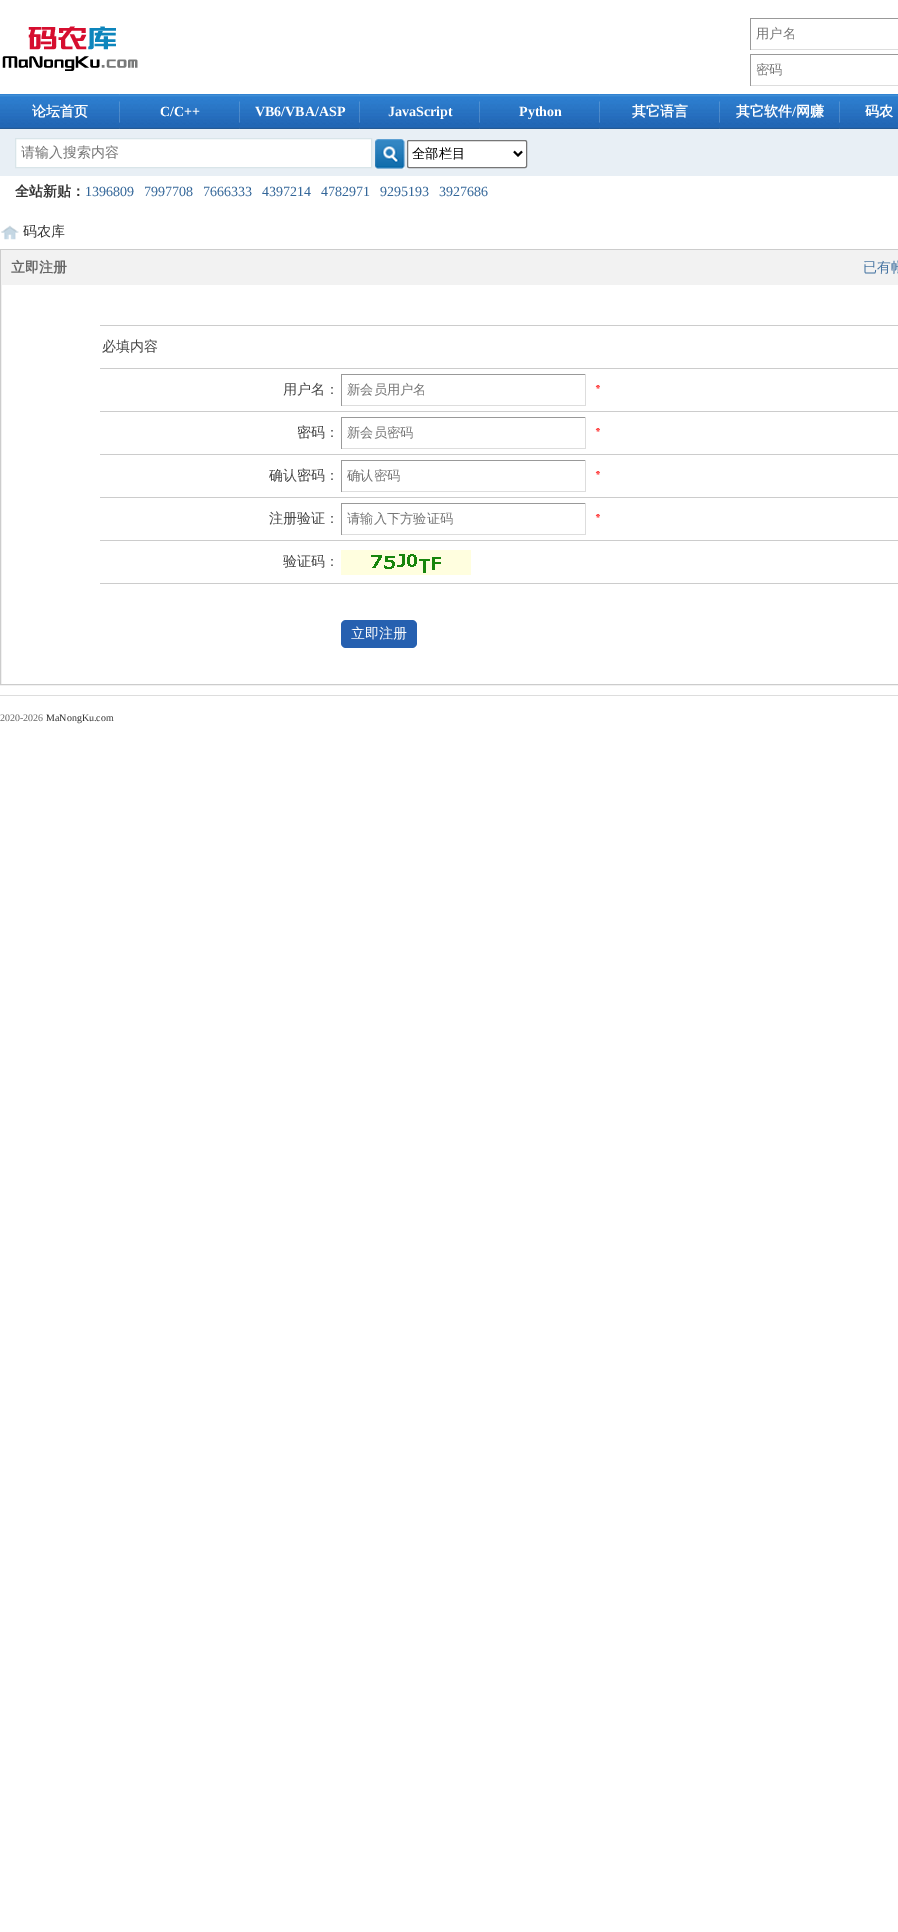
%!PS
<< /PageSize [898 1932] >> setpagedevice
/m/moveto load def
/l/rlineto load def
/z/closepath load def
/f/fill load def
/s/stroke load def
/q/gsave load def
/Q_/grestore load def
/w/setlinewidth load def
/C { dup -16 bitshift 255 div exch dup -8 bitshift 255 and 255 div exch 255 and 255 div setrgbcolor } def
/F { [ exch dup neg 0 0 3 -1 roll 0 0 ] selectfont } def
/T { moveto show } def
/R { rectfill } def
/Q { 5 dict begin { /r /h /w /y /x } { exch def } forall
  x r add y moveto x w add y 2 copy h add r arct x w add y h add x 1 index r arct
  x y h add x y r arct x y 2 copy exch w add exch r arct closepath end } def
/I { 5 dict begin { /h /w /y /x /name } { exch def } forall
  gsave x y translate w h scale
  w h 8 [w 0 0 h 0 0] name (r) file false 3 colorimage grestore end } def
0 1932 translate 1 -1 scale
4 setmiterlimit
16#FFFFFF C
0 0 898 1932 R
(1.rgb) 2 26 136 45 I
16#999999 C
750 18 148 1 R
16#DDDDDD C
750 49 148 1 R
16#999999 C
750 18 1 32 R
/WenQuanYiZenHei-Medium 13.25 F
16#757575 C
(用户名) 756 38 T
16#999999 C
750 54 148 1 R
16#DDDDDD C
750 85 148 1 R
16#999999 C
750 54 1 32 R
16#757575 C
(密码) 756 74 T
(2.rgb) 0 94 898 35 I
(3.rgb) 119 94 1 35 I
/WenQuanYiZenHei-Bold 14 F
16#FFFFFF C
(论坛首页) 32 116 T
(3.rgb) 239 94 1 35 I
/LiberationSerif-Bold 14 F
(C/C++) 160 116 T
(3.rgb) 359 94 1 35 I
(VB6/VBA/ASP) 255 116 T
(3.rgb) 479 94 1 35 I
(JavaScript) 388 116 T
(3.rgb) 599 94 1 35 I
(Python) 519 116 T
(3.rgb) 719 94 1 35 I
/WenQuanYiZenHei-Bold 14 F
(其它语言) 632 116 T
(3.rgb) 839 94 1 35 I
(其它软件) 736 116 T
/LiberationSerif-Bold 14 F
(/) 792 116 T
/WenQuanYiZenHei-Bold 14 F
(网赚) 796 116 T
(码农) 865 116 T
16#E8EFF5 C
0 129 898 47 R
16#FFFFFF C
15.5 138.5 m 356 0 l 0 29 l -356 0 l z q f Q_
16#D9E5E9 C
s
/WenQuanYiZenHei-Medium 14 F
16#757575 C
(请输入搜索内容) 21 157 T
(4.rgb) 375 139 30 30 I
16#FFFFFF C
407.5 140.5 119 27 1.5 Q q f Q_
16#767676 C
s
16#000000 C
2 w
514 151.5 m 4 4 l 4 -4 l s
/WenQuanYiZenHei-Medium 13.25 F
(全部栏目) 412 158 T
/WenQuanYiZenHei-Bold 14 F
16#333333 C
(全站新贴：) 15 196 T
/LiberationSerif-Regular 14 F
16#336699 C
(1396809) 85 196 T
(7997708) 144 196 T
(7666333) 203 196 T
(4397214) 262 196 T
(4782971) 321 196 T
(9295193) 380 196 T
(3927686) 439 196 T
(5.rgb) 1 225 18 15 I
/WenQuanYiZenHei-Medium 14 F
16#333333 C
(码农库) 23 236 T
16#CCCCCC C
1 w
.5 249.5 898 435 rectstroke
16#F2F2F2 C
1 250 897 35 R
/WenQuanYiZenHei-Bold 14 F
16#666666 C
(立即注册) 11 272 T
/WenQuanYiZenHei-Medium 14 F
16#4775A3 C
(已有帐) 863 272 T
16#CCCCCC C
100 325 798 1 R
16#444444 C
(必填内容) 102 351 T
(用户名：) 283 394 T
16#999999 C
341 374 245 1 R
16#DDDDDD C
585 374 1 32 R
341 405 245 1 R
16#999999 C
341 374 1 32 R
/WenQuanYiZenHei-Medium 13.25 F
16#757575 C
(新会员用户名) 347 394 T
16#CCCCCC C
100 368 798 1 R
/Caladea-Regular 14 F
16#FF0000 C
(*) 595 394 T
/WenQuanYiZenHei-Medium 14 F
16#444444 C
(密码：) 297 437 T
16#999999 C
341 417 245 1 R
16#DDDDDD C
585 417 1 32 R
341 448 245 1 R
16#999999 C
341 417 1 32 R
/WenQuanYiZenHei-Medium 13.25 F
16#757575 C
(新会员密码) 347 437 T
16#CCCCCC C
100 411 798 1 R
/Caladea-Regular 14 F
16#FF0000 C
(*) 595 437 T
/WenQuanYiZenHei-Medium 14 F
16#444444 C
(确认密码：) 269 480 T
16#999999 C
341 460 245 1 R
16#DDDDDD C
585 460 1 32 R
341 491 245 1 R
16#999999 C
341 460 1 32 R
/WenQuanYiZenHei-Medium 13.25 F
16#757575 C
(确认密码) 347 480 T
16#CCCCCC C
100 454 798 1 R
/Caladea-Regular 14 F
16#FF0000 C
(*) 595 480 T
/WenQuanYiZenHei-Medium 14 F
16#444444 C
(注册验证：) 269 523 T
16#999999 C
341 503 245 1 R
16#DDDDDD C
585 503 1 32 R
341 534 245 1 R
16#999999 C
341 503 1 32 R
/WenQuanYiZenHei-Medium 13.25 F
16#757575 C
(请输入下方验证码) 347 523 T
16#CCCCCC C
100 497 798 1 R
/Caladea-Regular 14 F
16#FF0000 C
(*) 595 523 T
16#CCCCCC C
100 540 798 1 R
/WenQuanYiZenHei-Medium 14 F
16#444444 C
(验证码：) 283 566 T
(6.rgb) 341 550 130 25 I
16#CCCCCC C
100 583 798 1 R
16#2660B0 C
341 620 76 28 5 Q f
16#FFFFFF C
(立即注册) 351 638 T
16#DDDDDD C
0 695 898 1 R
/LiberationSerif-Regular 10 F
16#666666 C
(2020-2026) 0 721 T
16#333333 C
(MaNongKu.com) 46 721 T
showpage
